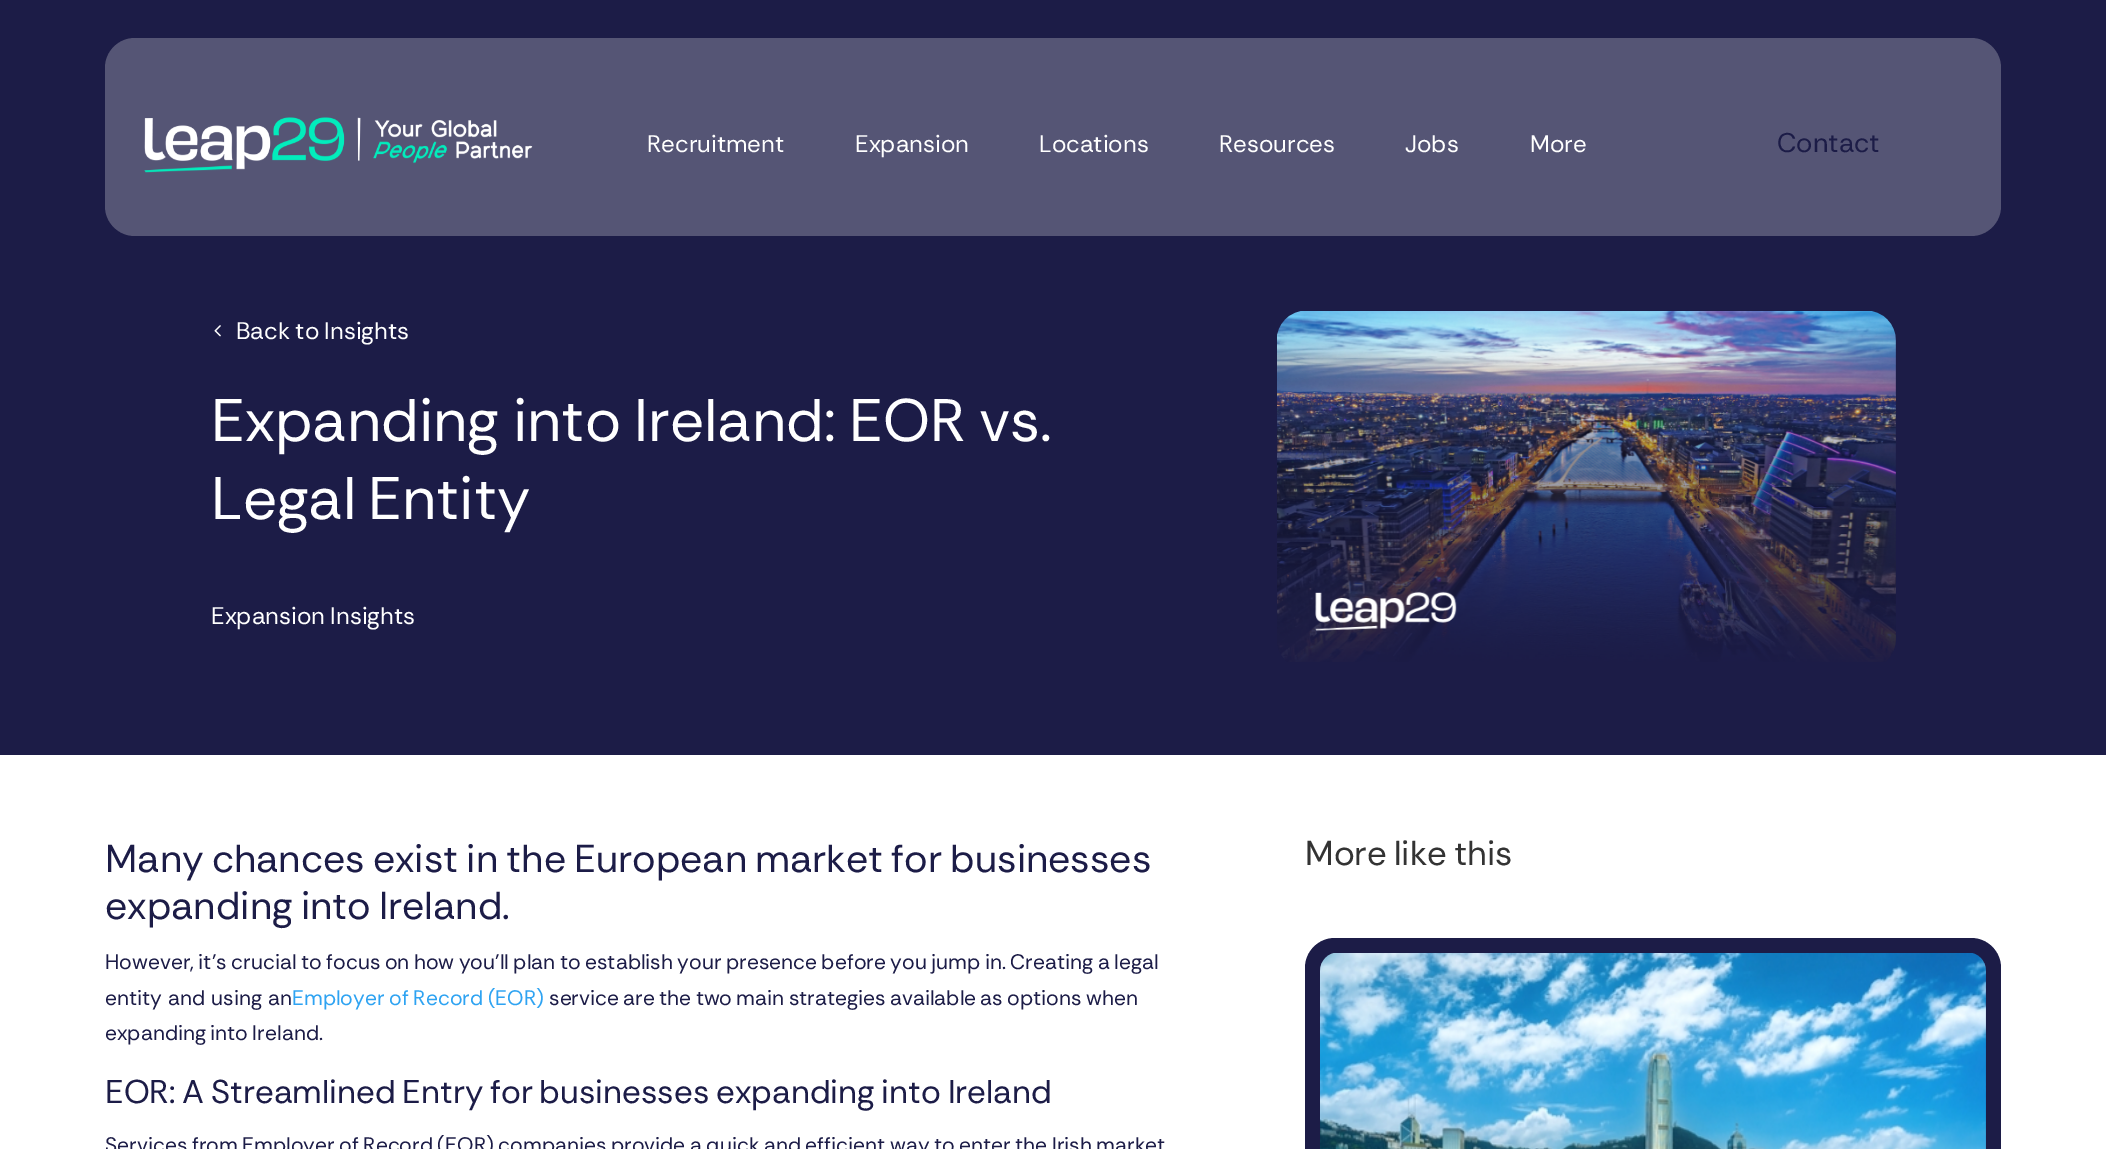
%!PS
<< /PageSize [2106 1149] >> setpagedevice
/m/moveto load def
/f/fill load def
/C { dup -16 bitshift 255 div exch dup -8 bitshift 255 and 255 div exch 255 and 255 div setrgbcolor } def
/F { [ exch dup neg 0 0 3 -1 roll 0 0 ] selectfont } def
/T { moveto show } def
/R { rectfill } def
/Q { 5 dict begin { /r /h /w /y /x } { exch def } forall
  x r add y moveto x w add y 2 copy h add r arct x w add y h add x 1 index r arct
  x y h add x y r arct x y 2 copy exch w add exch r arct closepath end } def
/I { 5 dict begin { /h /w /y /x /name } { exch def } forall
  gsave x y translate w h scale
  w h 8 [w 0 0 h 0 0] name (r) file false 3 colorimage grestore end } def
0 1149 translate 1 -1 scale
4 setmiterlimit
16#FFFFFF C
0 0 2106 1149 R
16#1C1C47 C
0 0 2106 755 R
16#555575 C
105 38 1896 198 30 Q f
(1.rgb) 144 117 389 56 I
/RethinkSans-Regular 24 F
16#FFFFFF C
(Recruitment) 647 152 T
(Expansion) 855 152 T
(Locations) 1039 152 T
(Resources) 1219 152 T
(Jobs) 1405 152 T
(More) 1530 152 T
/RethinkSans-Regular 27 F
16#1C1C47 C
(Contact) 1777 152 T
(2.rgb) 214 325 7 12 I
/RethinkSans-Regular 24 F
16#FFFFFF C
236 339 m -1 0 32 (Back to Insights) widthshow
/RethinkSans-Regular 60 F
211 441 m -2.5 0 32 (Expanding into Ireland: EOR vs.) widthshow
211 519 m -4 0 32 (Legal Entity) widthshow
/RethinkSans-Regular 24 F
211 624 m -1 0 32 (Expansion Insights) widthshow
(3.rgb) 1277 311 619 351 I
/RethinkSans-Regular 39 F
16#1C1C47 C
105 872 m -2.25 0 32 (Many chances exist in the European market for businesses) widthshow
105 919 m -2.25 0 32 (expanding into Ireland.) widthshow
/RethinkSans-Regular 21 F
105 969 m -1.1 0 32 (However, it’s crucial to focus on how you’ll plan to establish your presence before you jump in. Creating a legal) widthshow
105 1005 m .5 0 32 (entity and using an) widthshow
16#2EA3F2 C
292 1005 m -1 0 32 (Employer of Record \(EOR\)) widthshow
16#1C1C47 C
549 1005 m -1.25 0 32 (service are the two main strategies available as options when) widthshow
105 1040 m -1.25 0 32 (expanding into Ireland.) widthshow
/RethinkSans-Regular 33 F
105 1103 m -2 0 32 (EOR: A Streamlined Entry for businesses expanding into Ireland) widthshow
/RethinkSans-Regular 21 F
105 1152 m -1.1 0 32 (Services from Employer of Record \(EOR\) companies provide a quick and efficient way to enter the Irish market) widthshow
/RethinkSans-Regular 34.5 F
16#333333 C
1305 865 m -2 0 32 (More like this) widthshow
16#1C1C47 C
1305 938 696 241 30 Q f
(4.rgb) 1320 953 666 196 I
showpage
